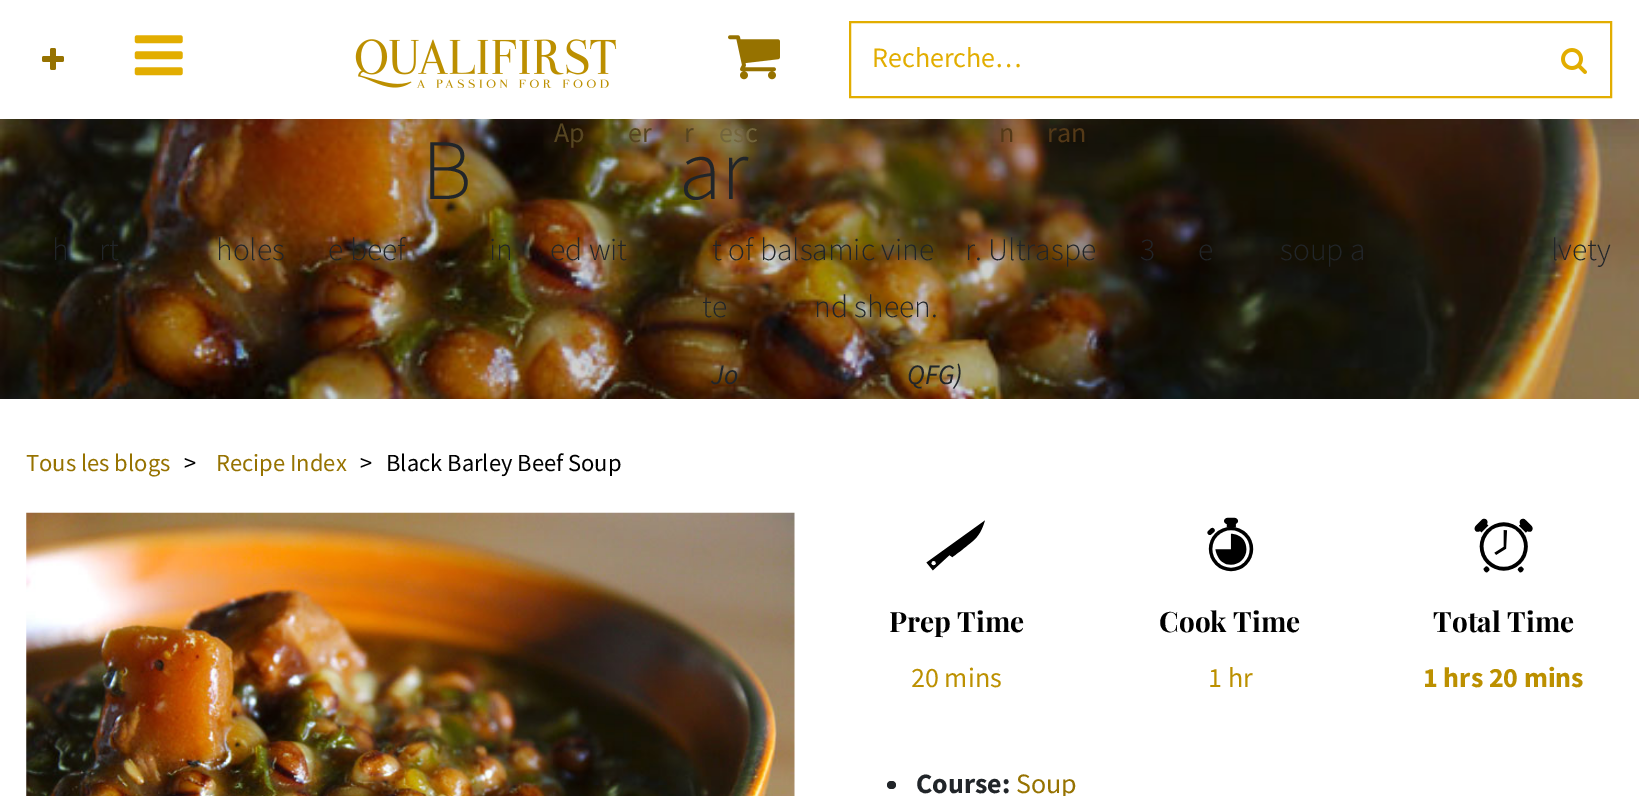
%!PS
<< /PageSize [1639 796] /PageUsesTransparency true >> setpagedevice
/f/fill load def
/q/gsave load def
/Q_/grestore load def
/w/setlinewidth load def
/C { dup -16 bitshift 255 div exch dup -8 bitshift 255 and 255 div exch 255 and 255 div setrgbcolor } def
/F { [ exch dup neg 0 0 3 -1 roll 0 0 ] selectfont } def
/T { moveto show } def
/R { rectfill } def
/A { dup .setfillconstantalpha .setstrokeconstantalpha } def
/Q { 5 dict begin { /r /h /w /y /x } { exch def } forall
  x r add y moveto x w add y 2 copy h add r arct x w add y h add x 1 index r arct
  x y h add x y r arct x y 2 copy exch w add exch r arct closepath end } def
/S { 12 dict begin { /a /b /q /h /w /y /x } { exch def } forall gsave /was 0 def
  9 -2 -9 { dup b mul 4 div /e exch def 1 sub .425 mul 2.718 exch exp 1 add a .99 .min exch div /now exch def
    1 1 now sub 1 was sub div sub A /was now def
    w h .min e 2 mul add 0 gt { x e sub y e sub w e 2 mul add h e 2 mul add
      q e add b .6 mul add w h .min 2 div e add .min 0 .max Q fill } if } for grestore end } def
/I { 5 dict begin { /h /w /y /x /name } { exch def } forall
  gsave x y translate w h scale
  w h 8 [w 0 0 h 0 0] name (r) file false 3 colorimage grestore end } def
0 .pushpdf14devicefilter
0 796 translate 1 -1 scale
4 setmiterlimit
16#FFFFFF C
0 0 1639 796 R
(6.rgb) 0 119 1639 280 I
q
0 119 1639 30 rectclip
16#222222 C
0 14 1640 119 0 14 .15 S
Q_
(1.rgb) 42 48 22 22 I
(2.rgb) 134 35 49 41 I
(3.rgb) 355 39 262 49 I
(4.rgb) 728 35 52 45 I
16#E2AD00 C
2 w
850 22 761 75 rectstroke
/SourceSansPro-Regular 28 F
(Recherche…) 872 67 T
(5.rgb) 1561 48 26 26 I
/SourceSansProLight-Light 86 F
16#212529 C
(B) 422 199 T
(ar) 679 199 T
/SourceSansProLight-Light 31.5 F
(h) 52 260 T
(rt) 99 260 T
(holes) 216 260 T
(e beef) 328 260 T
(in) 489 260 T
(ed wit) 550 260 T
(t of balsamic vine) 712 260 T
(r. Ultraspe) 965 260 T
(3) 1140 260 T
(e) 1198 260 T
(soup a) 1280 260 T
(lvety) 1551 260 T
(te) 702 317 T
(nd sheen.) 814 317 T
/SourceSansPro-Italic 28 F
(Jo) 711 384 T
(QFG\)) 907 384 T
/SourceSansPro-Regular 24.5 F
16#967200 C
(Tous les blogs) 26 471 T
16#000000 C
(>) 184 471 T
16#967200 C
(Recipe Index) 216 471 T
16#000000 C
(>) 360 471 T
(Black Barley Beef Soup) 386 471 T
(7.rgb) 26 512 769 284 I
(8.rgb) 926 520 59 51 I
/PlayfairDisplay-Bold 28 F
(Prep Time) 889 632 T
/SourceSansPro-Regular 28 F
16#BC9000 C
(20 mins) 911 687 T
(9.rgb) 1207 517 47 55 I
/PlayfairDisplay-Bold 28 F
16#000000 C
(Cook Time) 1159 632 T
/SourceSansPro-Regular 28 F
16#BC9000 C
(1 hr) 1208 687 T
(10.rgb) 1474 518 59 55 I
/PlayfairDisplay-Bold 28 F
16#000000 C
(Total Time) 1433 632 T
/SourceSansPro-Bold 28 F
16#BC9000 C
(1 hrs 20 mins) 1423 687 T
16#212529 C
887 781 9 8 4 Q f
(Course:) 916 793 T
/SourceSansPro-Regular 28 F
16#967200 C
(Soup) 1016 793 T
16#564521 C
(Ap) 554 142 T
(er) 628 142 T
(r) 684 142 T
16#73653C C
(esc) 719 142 T
16#543917 C
(n) 999 142 T
(ran) 1047 142 T
.poppdf14devicefilter showpage
